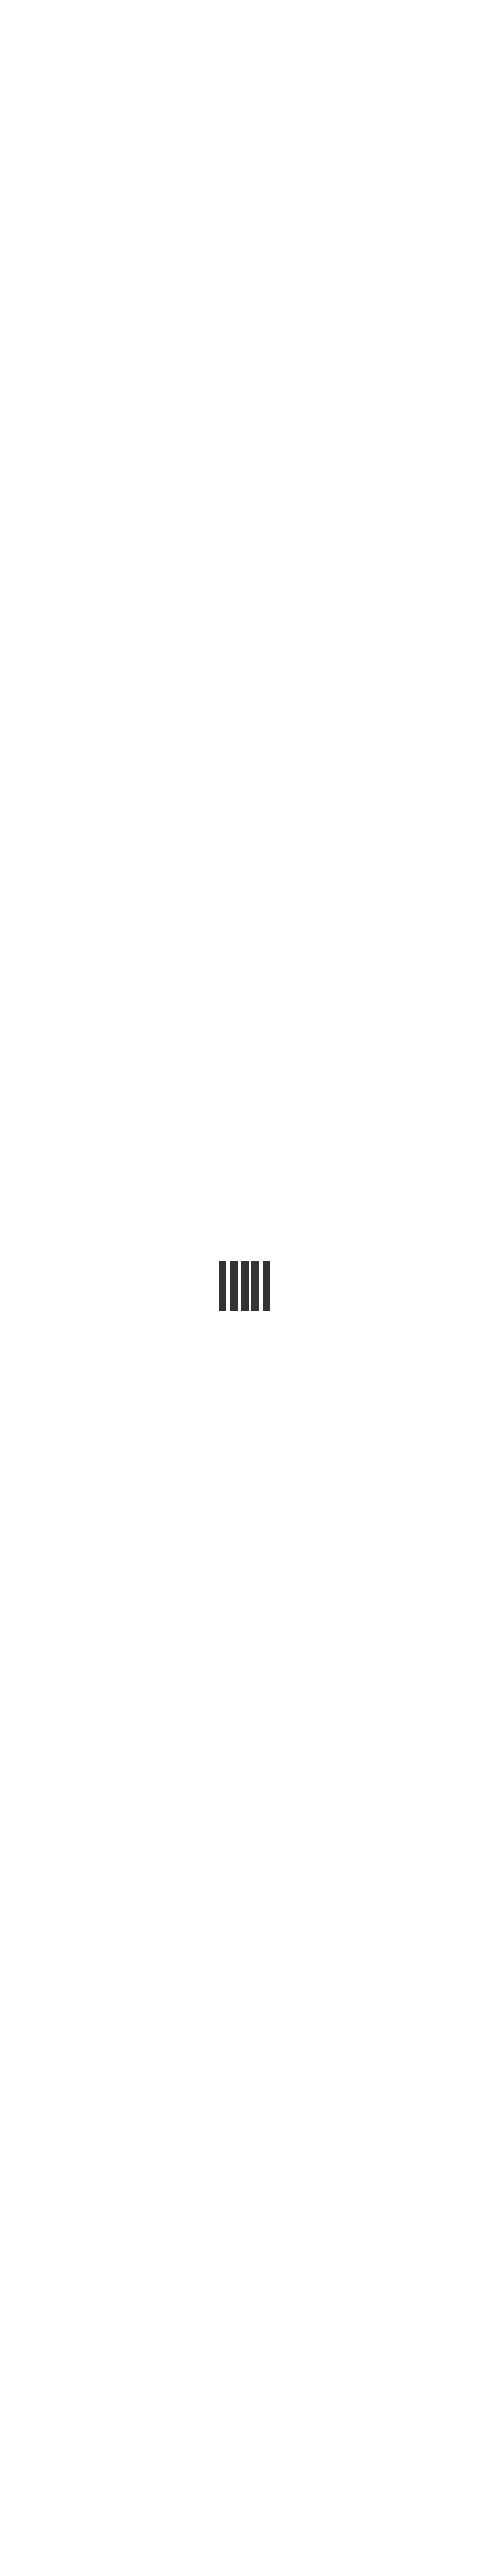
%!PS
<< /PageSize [488 2572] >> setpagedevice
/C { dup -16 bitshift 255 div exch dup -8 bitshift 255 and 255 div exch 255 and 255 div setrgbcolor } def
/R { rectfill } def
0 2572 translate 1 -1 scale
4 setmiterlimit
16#FFFFFF C
0 0 488 2572 R
16#333333 C
219 1261 7 50 R
230 1261 8 50 R
241 1261 8 50 R
251 1261 8 50 R
263 1261 7 50 R
showpage
